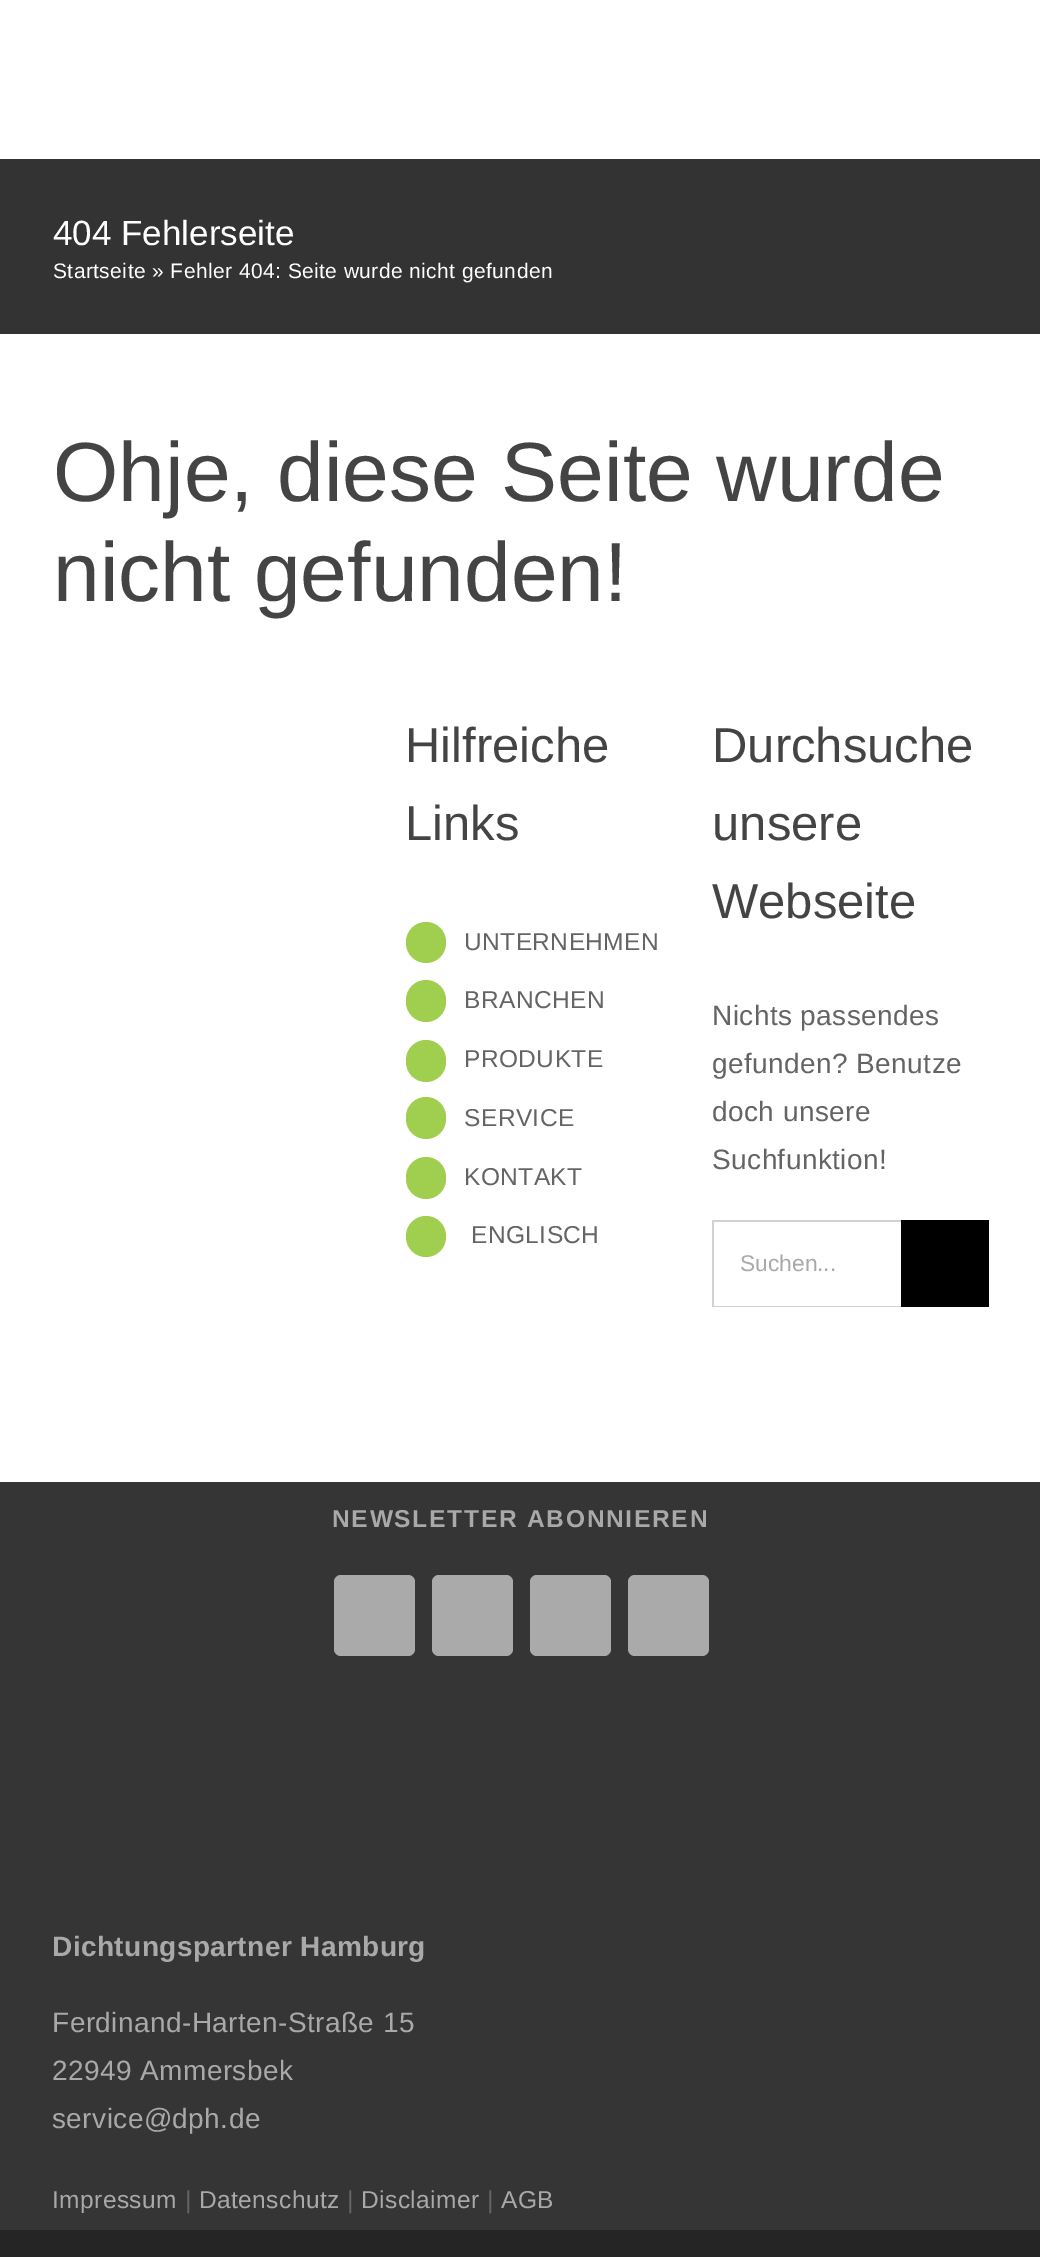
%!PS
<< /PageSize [1040 2257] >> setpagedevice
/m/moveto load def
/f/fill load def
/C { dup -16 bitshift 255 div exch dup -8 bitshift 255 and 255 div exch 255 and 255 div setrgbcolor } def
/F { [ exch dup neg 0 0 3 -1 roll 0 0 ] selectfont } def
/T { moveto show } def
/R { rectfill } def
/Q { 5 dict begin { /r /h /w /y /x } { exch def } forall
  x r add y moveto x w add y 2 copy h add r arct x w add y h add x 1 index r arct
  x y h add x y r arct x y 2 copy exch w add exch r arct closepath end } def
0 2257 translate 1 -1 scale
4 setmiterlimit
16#FFFFFF C
0 0 1040 2257 R
16#333333 C
0 159 1040 175 R
/LiberationSans-Regular 35 F
16#FFFFFF C
(404 Fehlerseite) 53 245 T
/LiberationSans-Regular 21 F
53 278 m .42 0 (Startseite » Fehler 404: Seite wurde nicht gefunden) ashow
/LiberationSans-Regular 84 F
16#444444 C
(Ohje, diese Seite wurde) 53 501 T
(nicht gefunden!) 53 601 T
/LiberationSans-Regular 49 F
(Hilfreiche) 405 762 T
(Links) 405 840 T
16#A0CE4E C
406 922 40 41 20 Q f
/LiberationSans-Regular 24.5 F
16#646464 C
464 950 m .42 0 (UNTERNEHMEN) ashow
16#A0CE4E C
406 980 40 42 20 Q f
16#646464 C
464 1008 m .42 0 (BRANCHEN) ashow
16#A0CE4E C
406 1040 40 42 20 Q f
16#646464 C
464 1067 m .42 0 (PRODUKTE) ashow
16#A0CE4E C
406 1097 40 42 20 Q f
16#646464 C
464 1126 m .42 0 (SERVICE) ashow
16#A0CE4E C
406 1157 40 42 20 Q f
16#646464 C
464 1185 m .42 0 (KONTAKT) ashow
16#A0CE4E C
406 1216 40 41 20 Q f
16#646464 C
471 1243 m .42 0 (ENGLISCH) ashow
/LiberationSans-Regular 49 F
16#444444 C
(Durchsuche) 712 762 T
(unsere) 712 840 T
(Webseite) 712 918 T
/LiberationSans-Regular 28 F
16#646464 C
712 1025 m .42 0 (Nichts passendes) ashow
712 1073 m .42 0 (gefunden? Benutze) ashow
712 1121 m .42 0 (doch unsere) ashow
712 1169 m .42 0 (Suchfunktion!) ashow
16#D2D2D2 C
712 1220 189 2 R
712 1306 189 1 R
712 1220 2 87 R
/LiberationSans-Regular 22.75 F
16#AAA9A9 C
(Suchen...) 740 1271 T
16#000000 C
901 1220 88 87 R
16#353535 C
0 1482 1040 748 R
/LiberationSans-Bold 24.5 F
16#AAA9A9 C
332 1527 m 1.75 0 (NEWSLETTER ABONNIEREN) ashow
16#AAAAAA C
334 1575 81 81 7 Q f
432 1575 81 81 7 Q f
530 1575 81 81 7 Q f
628 1575 81 81 7 Q f
/LiberationSans-Bold 28 F
16#AAA9A9 C
52 1956 m .42 0 (Dichtungspartner Hamburg) ashow
/LiberationSans-Regular 28 F
52 2032 m .42 0 (Ferdinand-Harten-Straße 15) ashow
52 2080 m .42 0 (22949 Ammersbek) ashow
52 2128 m .42 0 (service@dph.de) ashow
/LiberationSans-Regular 24.5 F
52 2208 m .42 0 (Impressum) ashow
16#646464 C
185 2208 m .42 0 (|) ashow
16#AAA9A9 C
199 2208 m .42 0 (Datenschutz) ashow
16#646464 C
347 2208 m .42 0 (|) ashow
16#AAA9A9 C
361 2208 m .42 0 (Disclaimer) ashow
16#646464 C
487 2208 m .42 0 (|) ashow
16#AAA9A9 C
501 2208 m .42 0 (AGB) ashow
16#252525 C
0 2230 1040 27 R
showpage
